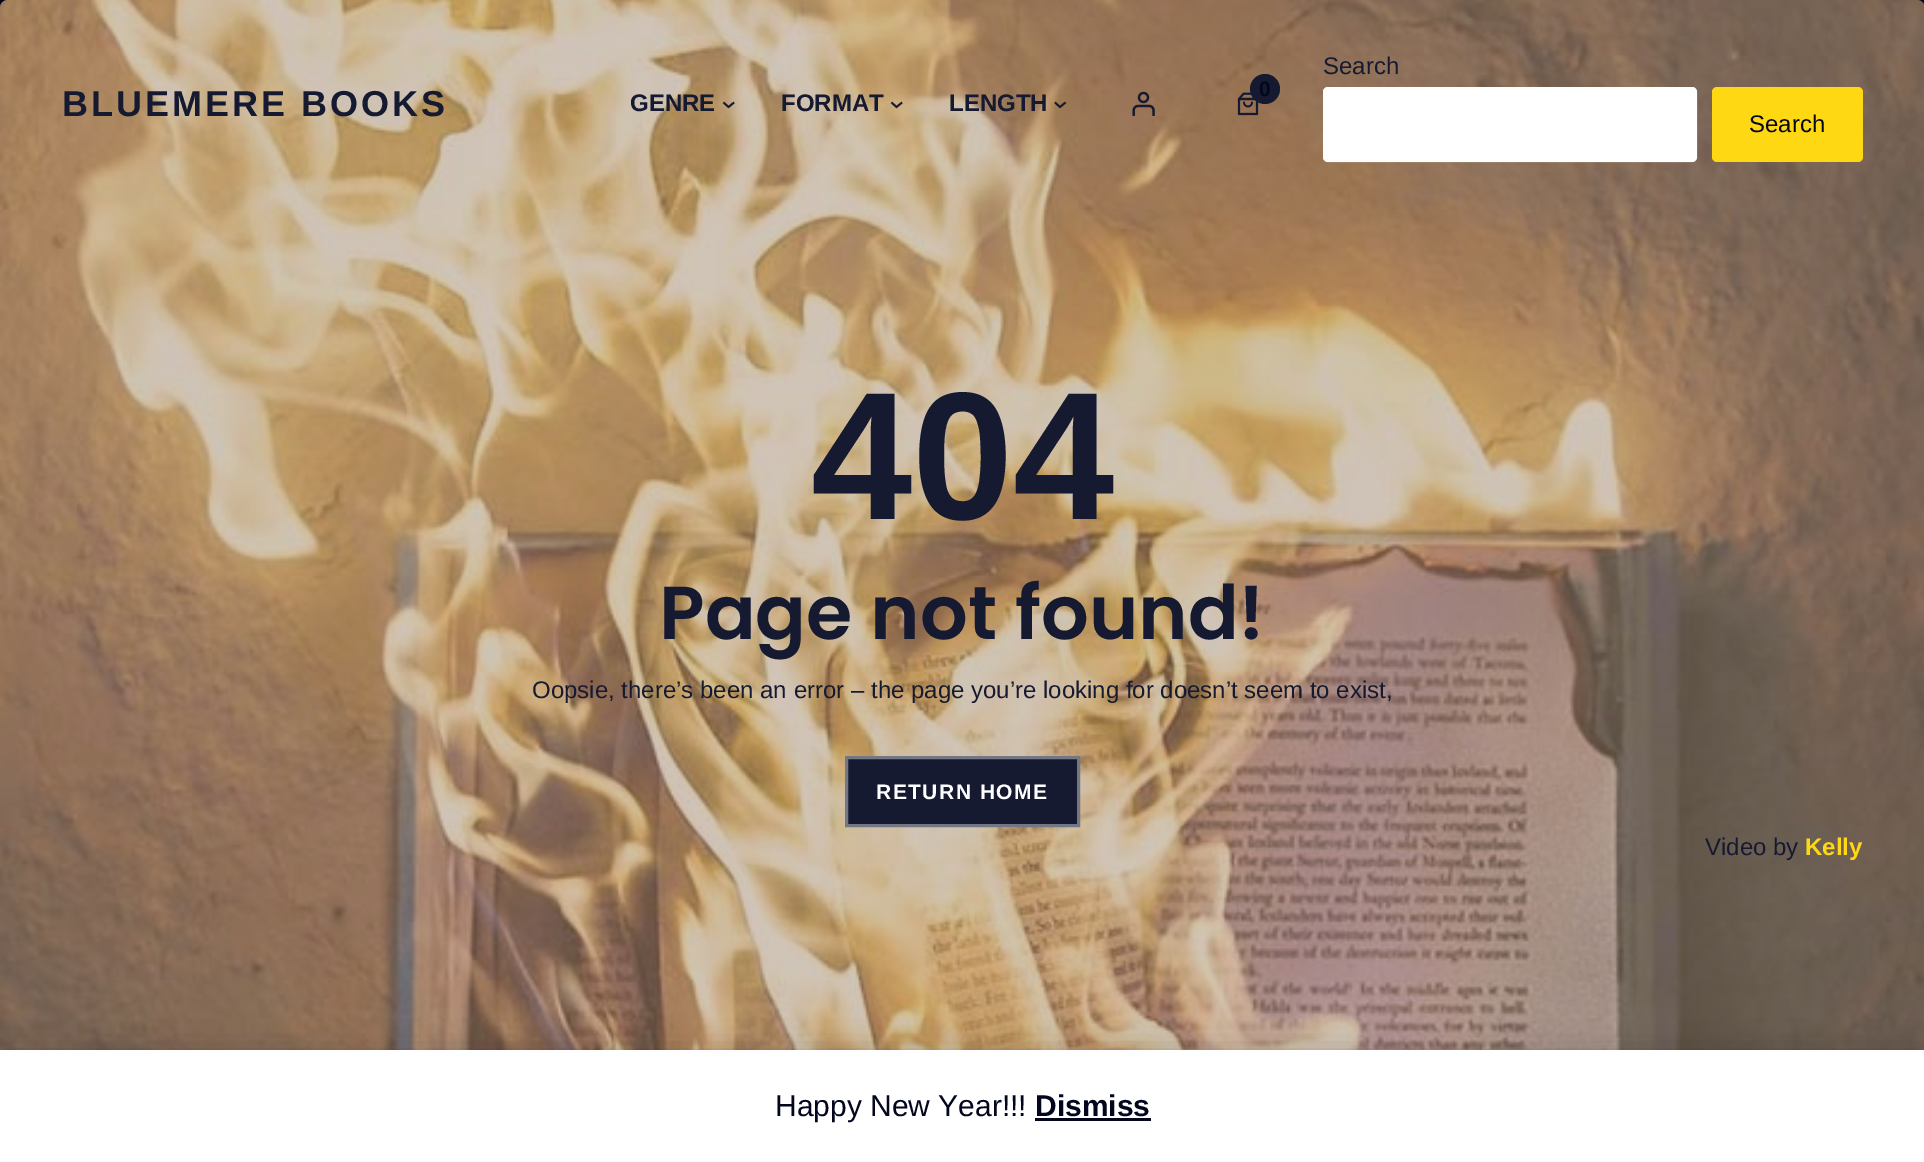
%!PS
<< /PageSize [1924 1162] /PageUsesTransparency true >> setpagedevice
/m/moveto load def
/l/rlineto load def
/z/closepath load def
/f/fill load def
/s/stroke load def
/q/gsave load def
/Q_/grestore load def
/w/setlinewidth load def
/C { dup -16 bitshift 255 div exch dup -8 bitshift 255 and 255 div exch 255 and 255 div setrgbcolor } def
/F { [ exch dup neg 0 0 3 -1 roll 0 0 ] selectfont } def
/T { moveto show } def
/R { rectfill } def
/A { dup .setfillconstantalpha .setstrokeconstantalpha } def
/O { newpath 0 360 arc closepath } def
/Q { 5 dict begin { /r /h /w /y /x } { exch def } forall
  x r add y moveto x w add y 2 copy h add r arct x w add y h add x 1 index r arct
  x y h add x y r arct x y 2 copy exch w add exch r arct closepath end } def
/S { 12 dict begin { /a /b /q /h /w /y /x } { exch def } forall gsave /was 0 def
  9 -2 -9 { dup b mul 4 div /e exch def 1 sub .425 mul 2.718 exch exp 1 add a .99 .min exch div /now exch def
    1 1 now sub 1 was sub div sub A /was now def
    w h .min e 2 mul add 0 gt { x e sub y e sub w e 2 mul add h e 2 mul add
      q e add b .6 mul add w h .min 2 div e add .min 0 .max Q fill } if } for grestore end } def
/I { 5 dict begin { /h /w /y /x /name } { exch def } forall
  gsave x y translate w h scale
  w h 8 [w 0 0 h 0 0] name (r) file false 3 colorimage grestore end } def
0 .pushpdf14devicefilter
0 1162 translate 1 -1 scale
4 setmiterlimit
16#03071E C
0 0 1924 1162 R
(1.rgb) 0 0 1924 1050 I
0.5 A
16#A38A71 C
0 0 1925 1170 8 Q f
/LiberationSans-Bold 36 F
1 A
16#161A31 C
62 116 m 3 0 (BLUEMERE BOOKS) ashow
(2.rgb) 1237 92 22 24 I
1265 89 15 O f
/LiberationSans-Bold 21 F
16#03071E C
(0) 1259 96 T
/LiberationSans-Regular 24 F
16#161A31 C
(Search) 1323 74 T
16#FFFFFF C
1323 87 374 75 5 Q f
0.4 A
2 w
1324 88 372 73 4 Q s
1 A
16#FFD814 C
1712 87 151 75 5 Q f
16#03071E C
(Search) 1749 132 T
/LiberationSans-Bold 24 F
16#161A31 C
(GENRE) 630 111 T
1.8 w
723.5 102.5 m 5 4.5 l 5.5 -4.5 l s
(FORMAT) 781 111 T
891.5 102.5 m 5 4.5 l 5.5 -4.5 l s
(LENGTH) 949 111 T
1055 102.5 m 5 4.5 l 5.5 -4.5 l s
(3.rgb) 1132 91 23 25 I
/LiberationSans-Bold 182 F
(404) 811 519 T
/Poppins-SemiBold 75 F
(Page not found!) 659 639 T
/LiberationSans-Regular 24 F
(Oopsie, there’s been an error – the page you’re looking for doesn’t seem to exist,) 532 698 T
846.5 757.5 m 232 0 l 0 68 l -232 0 l z q f Q_
16#737683 C
3 w
s
/LiberationSans-Bold 21 F
16#FFFFFF C
876 799 m 1.5 0 (RETURN HOME) ashow
/LiberationSans-Regular 24 F
16#161A31 C
(Video by) 1705 855 T
/LiberationSans-Bold 24 F
16#FFD814 C
(Kelly) 1805 855 T
16#000000 C
0 1052 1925 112 0 15 .2 S
16#FFFFFF C
0 1050 1924 112 R
/LiberationSans-Regular 30 F
16#03071E C
(Happy New Year!!!) 775 1116 T
/LiberationSans-Bold 30 F
(Dismiss) 1035 1116 T
1035 1118 116 3 R
.poppdf14devicefilter showpage
